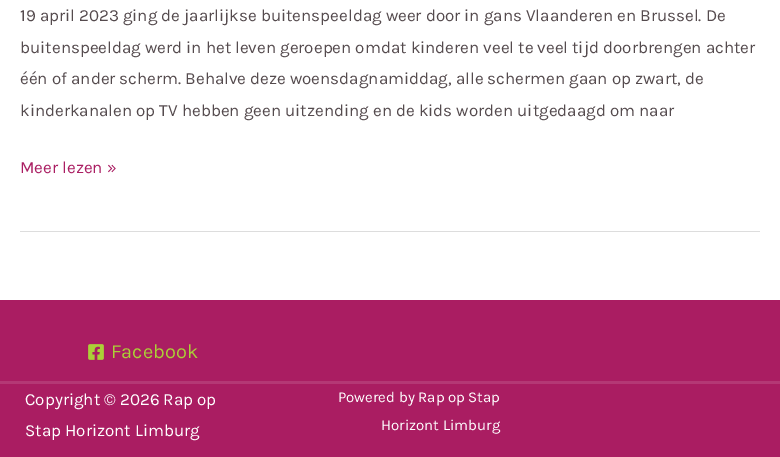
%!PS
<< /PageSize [780 457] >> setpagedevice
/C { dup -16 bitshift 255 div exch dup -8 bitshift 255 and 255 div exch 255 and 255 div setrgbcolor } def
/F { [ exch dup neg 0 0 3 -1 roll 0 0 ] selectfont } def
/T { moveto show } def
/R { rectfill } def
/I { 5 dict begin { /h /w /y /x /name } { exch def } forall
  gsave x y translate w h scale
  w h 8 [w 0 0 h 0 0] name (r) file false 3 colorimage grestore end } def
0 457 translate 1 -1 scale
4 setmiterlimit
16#FFFFFF C
0 0 780 457 R
16#DDDDDD C
20 231 740 1 R
/Karla-Regular 17 F
16#554B4E C
(19 april 2023 ging de jaarlijkse buitenspeeldag weer door in gans Vlaanderen en Brussel. De) 20 21 T
(buitenspeeldag werd in het leven geroepen omdat kinderen veel te veel tijd doorbrengen achter) 20 53 T
(één of ander scherm. Behalve deze woensdagnamiddag, alle schermen gaan op zwart, de) 20 84 T
(kinderkanalen op TV hebben geen uitzending en de kids worden uitgedaagd om naar) 20 116 T
16#AA1D62 C
(Meer lezen ») 20 173 T
0 300 780 81 R
(1.rgb) 88 344 16 16 I
/Karla-Regular 20 F
16#ABD037 C
(Facebook) 111 358 T
16#AA1D62 C
0 384 780 73 R
16#B43875 C
0 381 780 3 R
/Karla-Regular 17 F
16#FFFFFF C
(Copyright © 2026 Rap op) 25 405 T
(Stap Horizont Limburg) 25 436 T
/Karla-Regular 15 F
(Powered by Rap op Stap) 338 402 T
(Horizont Limburg) 381 430 T
showpage
